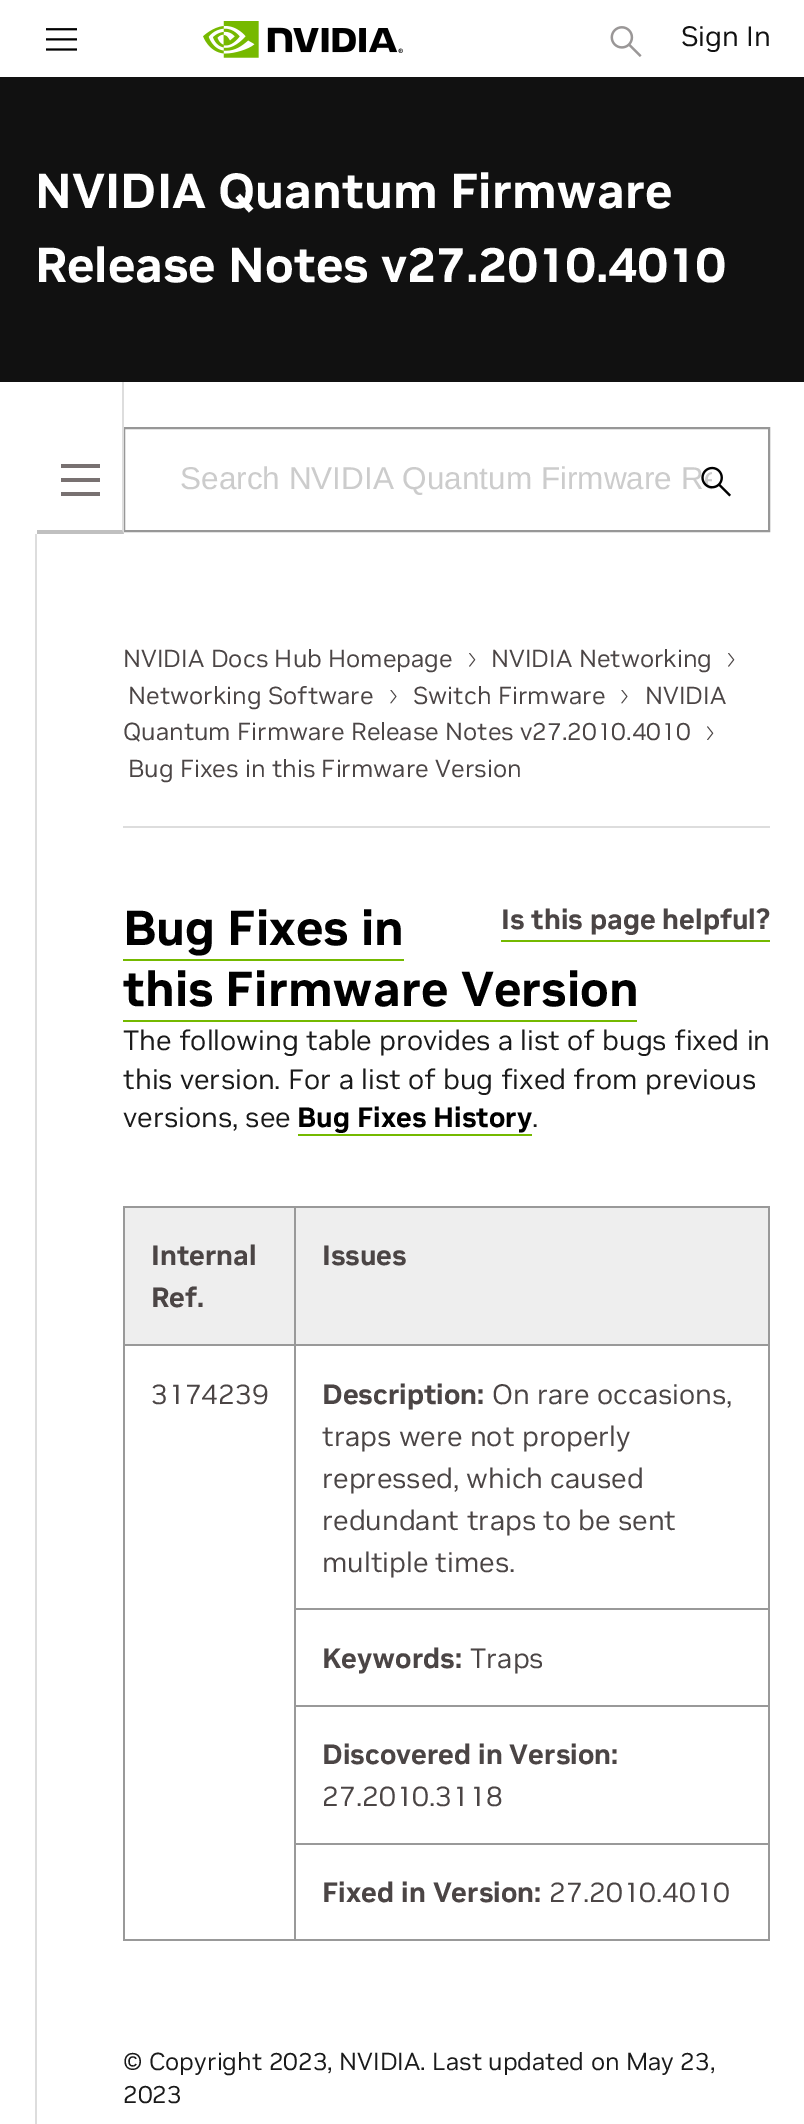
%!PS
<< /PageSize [804 2124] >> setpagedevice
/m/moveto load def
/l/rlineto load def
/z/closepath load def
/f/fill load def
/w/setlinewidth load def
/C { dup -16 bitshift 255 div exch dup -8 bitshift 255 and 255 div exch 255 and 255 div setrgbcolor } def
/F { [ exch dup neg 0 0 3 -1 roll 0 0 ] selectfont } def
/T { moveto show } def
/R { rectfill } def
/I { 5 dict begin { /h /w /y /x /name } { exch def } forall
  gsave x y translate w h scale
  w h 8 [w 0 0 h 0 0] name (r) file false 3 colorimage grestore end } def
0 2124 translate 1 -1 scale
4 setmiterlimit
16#FFFFFF C
0 0 804 2124 R
(1.rgb) 46 28 31 23 I
(2.rgb) 203 21 200 37 I
(3.rgb) 610 26 32 31 I
/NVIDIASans-Regular 28 F
16#111111 C
(Sign In) 681 46 T
0 77 804 305 R
/NVIDIASans-Bold 49 F
16#FFFFFF C
(NVIDIA Quantum Firmware) 35 208 T
(Release Notes v27.2010.4010) 35 282 T
16#979797 C
2 w
124 428 645 103 rectstroke
16#FFFFFF C
123 427 1 105 R
16#DDDDDD C
124 382 m 0 152 l -2 -4 l 0 -148 l z f
16#C0C0C0 C
124 534 m -87 0 l 0 -4 l 85 0 l z f
16#787171 C
61 464 39 4 R
61 478 39 4 R
61 492 39 4 R
16#DDDDDD C
35 534 2 1590 R
/LiberationSans-Regular 31.5 F
16#CCCCCC C
(Search NVIDIA Quantum Firmware R) 180 489 T
(4.rgb) 701 466 30 31 I
/NVIDIASans-Regular 24.5 F
16#4B4545 C
(NVIDIA Docs Hub Homepage) 123 667 T
(5.rgb) 469 653 7 14 I
(NVIDIA Networking) 491 667 T
(5.rgb) 728 653 7 14 I
(Networking Software) 128 704 T
(6.rgb) 390 690 7 14 I
(Switch Firmware) 413 704 T
(6.rgb) 621 690 7 14 I
(NVIDIA) 645 704 T
(Quantum Firmware Release Notes v27.2010.4010) 123 740 T
(7.rgb) 707 726 7 14 I
(Bug Fixes in this Firmware Version) 128 777 T
16#DDDDDD C
123 826 647 2 R
/NVIDIASans-Bold 49 F
16#000000 C
(Bug Fixes in) 123 945 T
16#74B900 C
123 959 281 2 R
16#000000 C
(this Firmware Version) 123 1006 T
16#74B900 C
123 1020 514 2 R
501 940 269 2 R
/NVIDIASans-Bold 28 F
16#4B4545 C
(Is this page helpful?) 501 929 T
/NVIDIASans-Regular 28 F
16#1A1A1A C
(The following table provides a list of bugs fixed in) 123 1050 T
(this version. For a list of bug fixed from previous) 123 1089 T
(versions, see) 123 1127 T
/NVIDIASans-Bold 28 F
16#000000 C
(Bug Fixes History) 297 1127 T
16#74B900 C
298 1134 234 2 R
/NVIDIASans-Regular 28 F
16#1A1A1A C
(.) 532 1127 T
16#EEEEEE C
125 1208 643 136 R
16#999999 C
294 1206 476 2 R
294 1344 476 2 R
294 1608 476 2 R
294 1705 476 2 R
294 1843 476 2 R
768 1843 2 98 R
294 1939 476 2 R
294 1843 2 98 R
294 1705 2 140 R
294 1608 2 98 R
294 1344 2 266 R
123 1344 173 2 R
294 1206 2 140 R
123 1206 173 2 R
123 1939 173 2 R
123 1344 2 597 R
123 1206 2 140 R
/NVIDIASans-Bold 28 F
16#4B4545 C
(Internal) 151 1265 T
(Ref.) 151 1307 T
16#999999 C
768 1705 2 140 R
768 1608 2 98 R
768 1344 2 266 R
768 1206 2 140 R
16#4B4545 C
(Issues) 322 1265 T
/NVIDIASans-Regular 28 F
(3174239) 151 1404 T
/NVIDIASans-Bold 28 F
(Description:) 322 1404 T
/NVIDIASans-Regular 28 F
(On rare occasions,) 492 1404 T
(traps were not properly) 322 1446 T
(repressed, which caused) 322 1488 T
(redundant traps to be sent) 322 1530 T
(multiple times.) 322 1572 T
/NVIDIASans-Bold 28 F
(Keywords:) 322 1668 T
/NVIDIASans-Regular 28 F
(Traps) 470 1668 T
/NVIDIASans-Bold 28 F
(Discovered in Version:) 322 1764 T
/NVIDIASans-Regular 28 F
(27.2010.3118) 322 1806 T
/NVIDIASans-Bold 28 F
(Fixed in Version:) 322 1902 T
/NVIDIASans-Regular 28 F
(27.2010.4010) 549 1902 T
/NVIDIASans-Regular 24.5 F
16#1A1A1A C
(© Copyright 2023, NVIDIA. Last updated on May 23,) 123 2070 T
(2023) 123 2103 T
showpage
